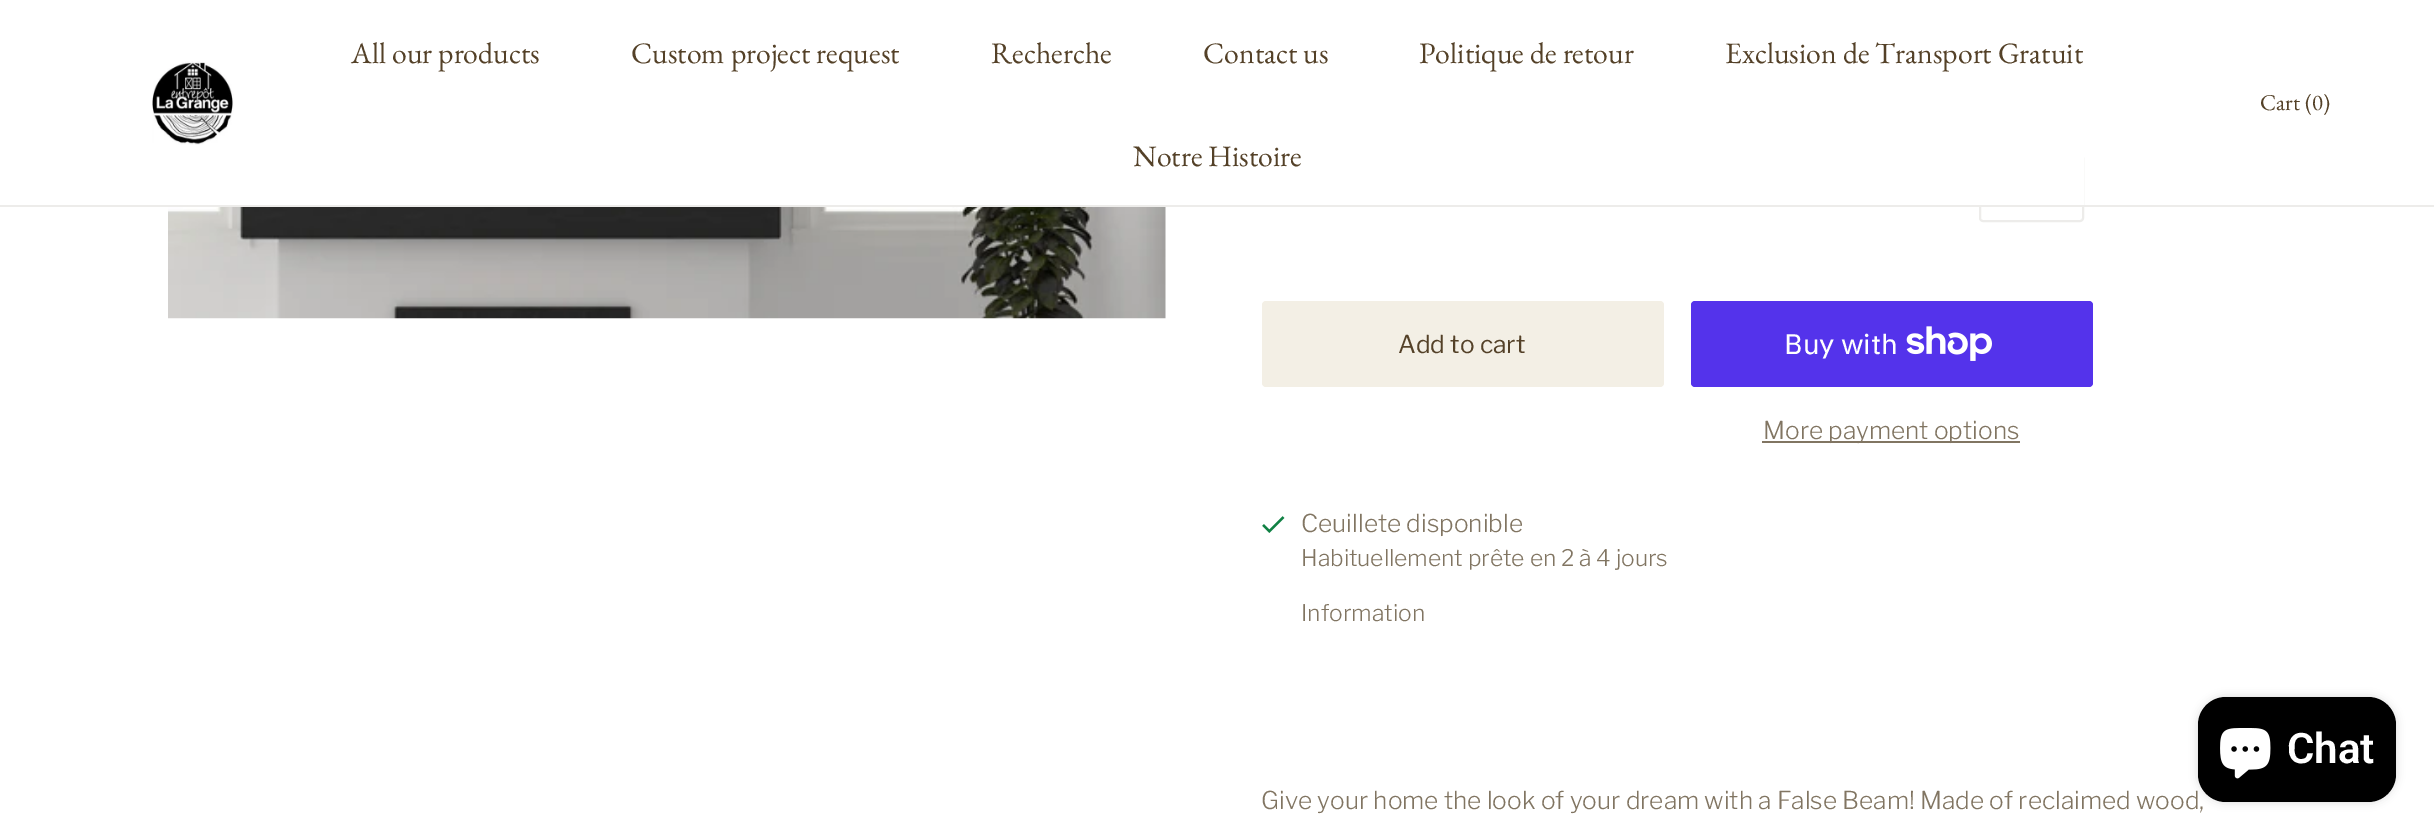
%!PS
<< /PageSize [2434 837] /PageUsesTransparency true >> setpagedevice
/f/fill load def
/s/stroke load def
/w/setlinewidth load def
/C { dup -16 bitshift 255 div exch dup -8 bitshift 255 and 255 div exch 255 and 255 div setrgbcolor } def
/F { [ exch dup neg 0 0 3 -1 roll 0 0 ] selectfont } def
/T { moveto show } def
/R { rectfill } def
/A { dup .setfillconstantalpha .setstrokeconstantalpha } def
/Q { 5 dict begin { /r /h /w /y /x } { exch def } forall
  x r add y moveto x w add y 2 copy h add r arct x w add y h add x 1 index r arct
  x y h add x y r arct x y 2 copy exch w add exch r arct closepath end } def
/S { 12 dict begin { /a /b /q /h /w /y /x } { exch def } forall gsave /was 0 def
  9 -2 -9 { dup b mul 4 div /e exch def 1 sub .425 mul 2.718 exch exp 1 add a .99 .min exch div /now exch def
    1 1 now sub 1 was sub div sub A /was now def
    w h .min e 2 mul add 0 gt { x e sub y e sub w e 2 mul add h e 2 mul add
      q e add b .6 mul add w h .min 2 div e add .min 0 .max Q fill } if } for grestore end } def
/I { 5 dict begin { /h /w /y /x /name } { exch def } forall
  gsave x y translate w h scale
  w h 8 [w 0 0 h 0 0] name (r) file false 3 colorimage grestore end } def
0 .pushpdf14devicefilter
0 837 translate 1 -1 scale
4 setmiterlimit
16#FFFFFF C
0 0 2434 837 R
16#EDECEA C
2 w
1980 155 103 66 3 Q s
16#FFFFFF C
1979 154 105 51 R
16#EDECEA C
0 205 2434 2 R
(1.rgb) 152 61 82 84 I
/EBGaramond-Regular 29.75 F
16#544128 C
(All our products) 351 63 T
(Custom project request) 631 63 T
(Recherche) 991 63 T
(Contact us) 1203 63 T
(Politique de retour) 1419 63 T
(Exclusion de Transport Gratuit) 1725 63 T
(Notre Histoire) 1133 166 T
/EBGaramond-Regular 22.75 F
(Cart \(0\)) 2260 110 T
(2.rgb) 168 207 998 112 I
16#F3EFE5 C
1262 301 402 86 4 Q f
/LibreFranklin-Regular 24.5 F
16#544128 C
(Add to cart) 1398 353 T
16#5433EB C
1691 301 402 86 4 Q f
/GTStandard-Regular 28 F
16#FFFFFF C
(Buy with) 1784 354 T
(3.rgb) 1906 326 86 35 I
16#817562 C
1762 441 258 2 R
/LibreFranklin-Light 24.5 F
(More payment options) 1763 439 T
(4.rgb) 1262 516 23 17 I
(Ceuillete disponible) 1301 532 T
/LibreFranklin-Light 22.75 F
(Habituellement prête en 2 à 4 jours) 1301 566 T
(Information) 1301 621 T
/LibreFranklin-Light 24.5 F
(Give your home the look of your dream with a False Beam! Made of reclaimed wood,) 1261 809 T
16#000000 C
2198 697 198 105 28 4.5 .15 S
2198 697 198 105 28 Q f
(5.rgb) 2220 728 51 51 I
/Roboto-SemiBold 42 F
16#FFFFFF C
(Chat) 2287 763 T
.poppdf14devicefilter showpage
